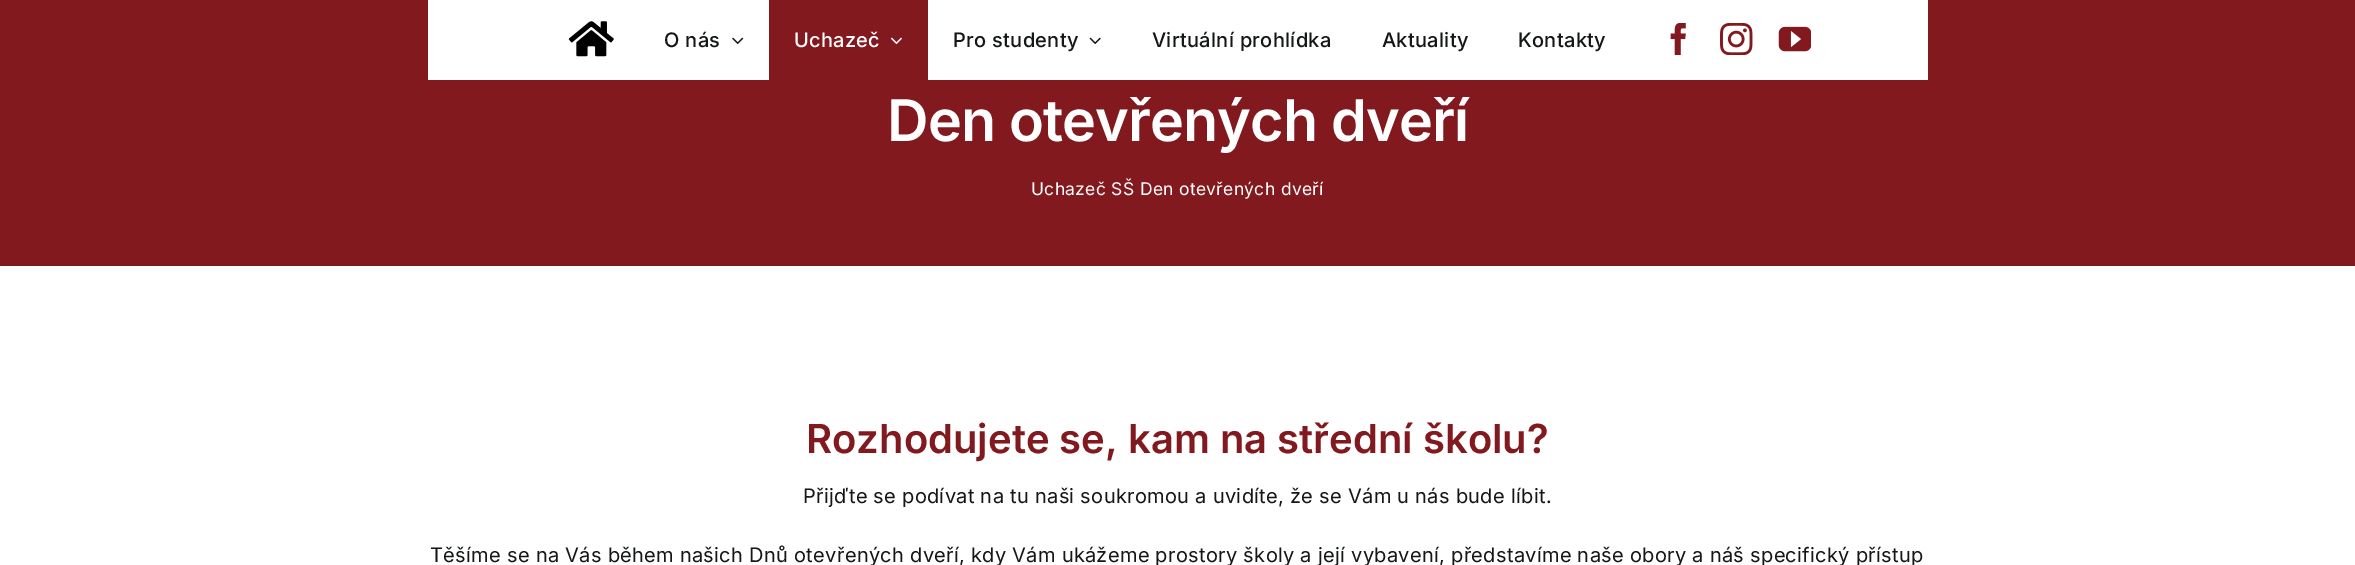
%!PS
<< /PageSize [2355 565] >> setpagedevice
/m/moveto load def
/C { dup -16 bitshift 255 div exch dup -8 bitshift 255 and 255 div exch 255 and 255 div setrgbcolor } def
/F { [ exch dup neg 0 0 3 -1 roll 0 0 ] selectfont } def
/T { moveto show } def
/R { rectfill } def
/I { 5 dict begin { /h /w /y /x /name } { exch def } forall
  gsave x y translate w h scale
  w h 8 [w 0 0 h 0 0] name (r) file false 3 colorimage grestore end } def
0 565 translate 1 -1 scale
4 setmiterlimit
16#FFFFFF C
0 0 2355 565 R
16#82191E C
0 0 2355 266 R
16#FFFFFF C
428 0 1500 80 R
(1.rgb) 568 21 46 36 I
/Inter-Medium 20 F
16#141617 C
664 47 m .3 0 (O nás) ashow
(2.rgb) 732 37 12 8 I
16#82191E C
769 0 159 80 R
16#FFFFFF C
794 47 m .3 0 (Uchazeč) ashow
(3.rgb) 890 37 12 8 I
16#141617 C
953 47 m .3 0 (Pro studenty) ashow
(4.rgb) 1089 37 12 8 I
1152 47 m .3 0 (Virtuální prohlídka) ashow
1382 47 m .3 0 (Aktuality) ashow
1518 47 m .3 0 (Kontakty) ashow
(5.rgb) 1670 23 16 32 I
(6.rgb) 1720 23 33 32 I
(7.rgb) 1778 26 33 26 I
/Inter-SemiBold 57.5 F
16#FFFFFF C
887 141 m -.9 0 (Den otevřených dveří) ashow
/Inter-Regular 17.5 F
1031 195 m .3 0 (Uchazeč SŠ Den otevřených dveří) ashow
/Inter-SemiBold 40 F
16#82191E C
(Rozhodujete se, kam na střední školu?) 806 453 T
/Inter-Regular 20 F
16#141617 C
803 503 m .3 0 (Přijďte se podívat na tu naši soukromou a uvidíte, že se Vám u nás bude líbit.) ashow
430 562 m .3 0 (Těšíme se na Vás během našich Dnů otevřených dveří, kdy Vám ukážeme prostory školy a její vybavení, představíme naše obory a náš specifický přístup) ashow
showpage
